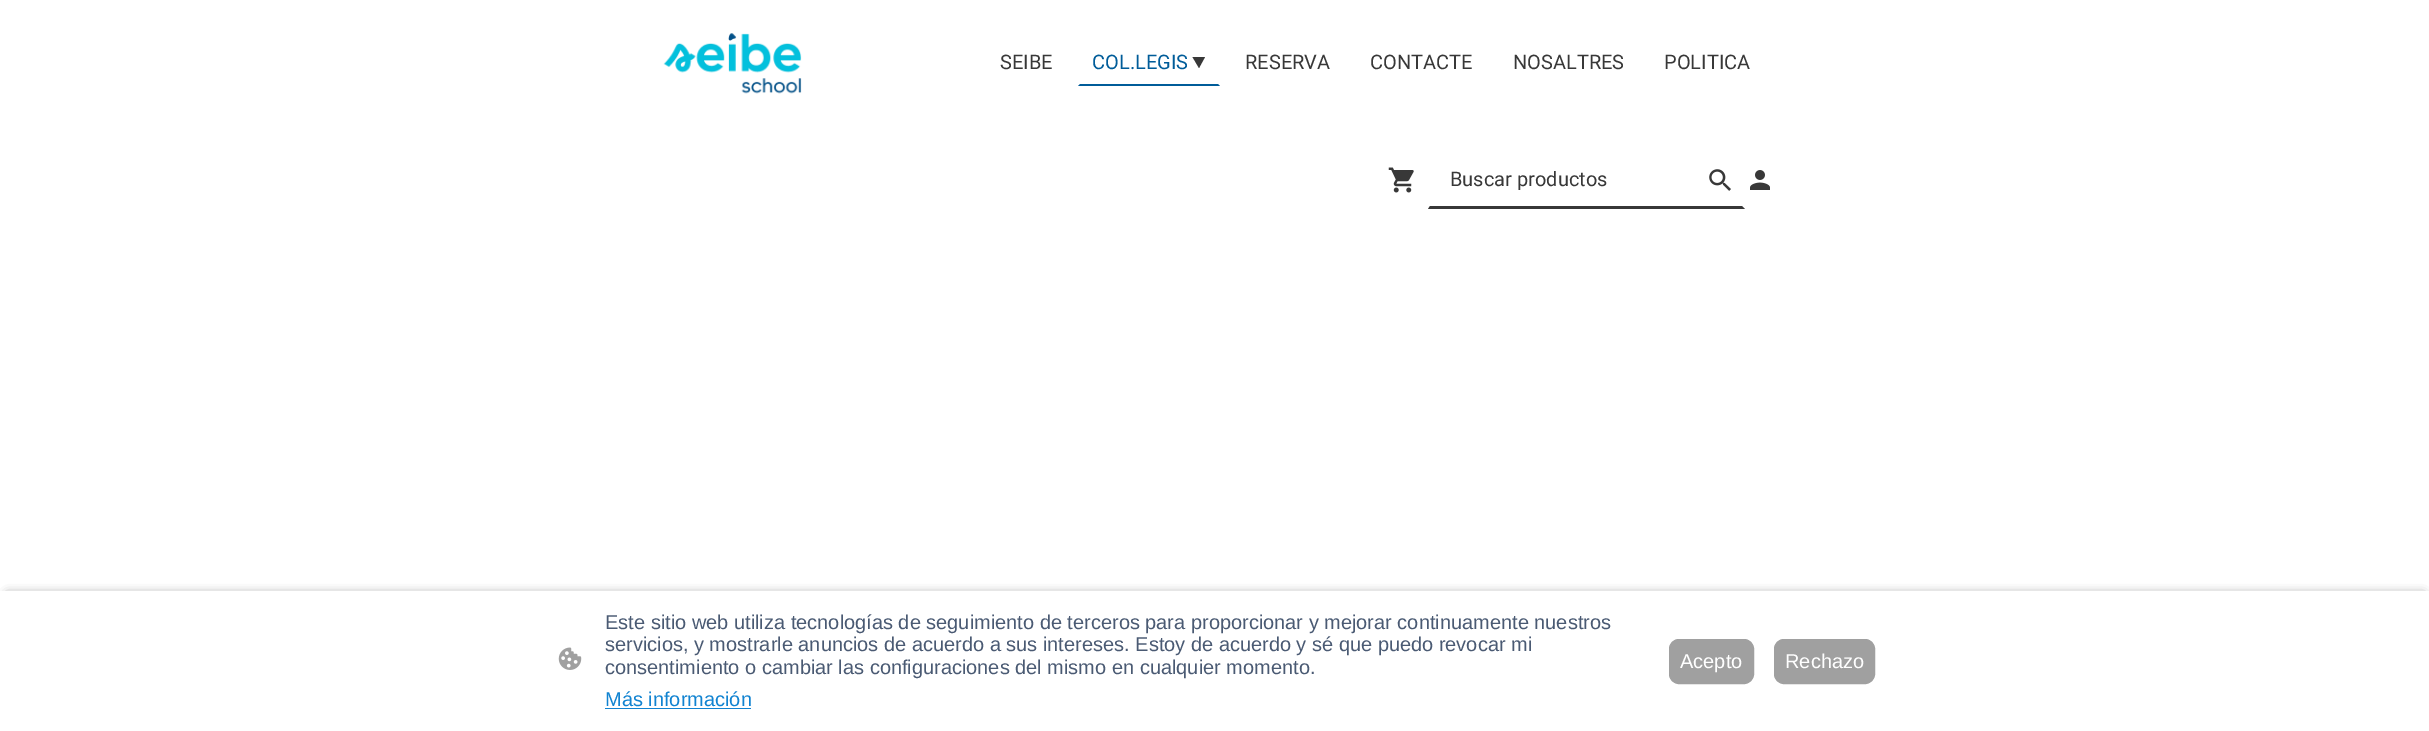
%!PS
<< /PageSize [2429 731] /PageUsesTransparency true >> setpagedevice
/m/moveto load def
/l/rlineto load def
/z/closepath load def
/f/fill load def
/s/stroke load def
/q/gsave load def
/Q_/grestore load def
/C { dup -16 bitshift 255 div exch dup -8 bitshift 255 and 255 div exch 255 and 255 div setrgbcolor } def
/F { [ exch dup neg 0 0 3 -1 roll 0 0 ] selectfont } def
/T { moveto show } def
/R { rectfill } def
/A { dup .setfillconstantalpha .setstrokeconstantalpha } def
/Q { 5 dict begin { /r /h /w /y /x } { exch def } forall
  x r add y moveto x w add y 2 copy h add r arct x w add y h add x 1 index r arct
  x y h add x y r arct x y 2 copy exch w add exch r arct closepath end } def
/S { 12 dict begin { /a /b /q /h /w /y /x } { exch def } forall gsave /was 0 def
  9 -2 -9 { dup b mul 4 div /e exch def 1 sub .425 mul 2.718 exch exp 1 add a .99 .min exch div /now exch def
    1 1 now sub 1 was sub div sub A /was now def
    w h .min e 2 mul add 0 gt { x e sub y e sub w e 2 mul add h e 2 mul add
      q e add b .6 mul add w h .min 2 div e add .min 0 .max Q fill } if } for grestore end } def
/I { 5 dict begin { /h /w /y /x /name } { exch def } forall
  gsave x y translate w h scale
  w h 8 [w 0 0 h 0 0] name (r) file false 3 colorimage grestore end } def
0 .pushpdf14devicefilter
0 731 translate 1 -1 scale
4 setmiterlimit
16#FFFFFF C
0 0 2429 731 R
(1.rgb) 663 33 139 61 I
/Roboto-Regular 20 F
16#383838 C
(SEIBE) 1000 69 T
16#005C99 C
1220 86 m -142 0 l 2 -2 l 138 0 l z f
(COL.LEGIS) 1092 69 T
16#383838 C
1205 57 m -6 11 l -6.5 -11 l z f
(RESERVA) 1245 69 T
(CONTACTE) 1370 69 T
(NOSALTRES) 1513 69 T
(POLITICA) 1664 69 T
(2.rgb) 1388 167 26 26 I
1745 209 m -317 0 l 2 -3 l 312 0 l z f
(Buscar productos) 1450 186 T
(3.rgb) 1709 169 22 22 I
(4.rgb) 1750 170 20 20 I
16#000000 C
8 595 2415 125 0 5 .63 S
16#FFFFFF C
0 591 2429 140 R
(5.rgb) 558 647 24 23 I
/LiberationSans-Regular 20 F
16#4A5A73 C
(Este sitio web utiliza tecnologías de seguimiento de terceros para proporcionar y mejorar continuamente nuestros) 605 629 T
(servicios, y mostrarle anuncios de acuerdo a sus intereses. Estoy de acuerdo y sé que puedo revocar mi) 605 651 T
(consentimiento o cambiar las configuraciones del mismo en cualquier momento.) 605 674 T
16#1183D1 C
(Más información) 605 706 T
605 708 146 1 R
16#A0A0A0 C
1669.5 639.5 84 44 9.5 Q q f Q_
s
16#FFFFFF C
(Acepto) 1680 668 T
16#A0A0A0 C
1774.5 639.5 100 44 9.5 Q q f Q_
s
16#FFFFFF C
(Rechazo) 1785 668 T
.poppdf14devicefilter showpage
